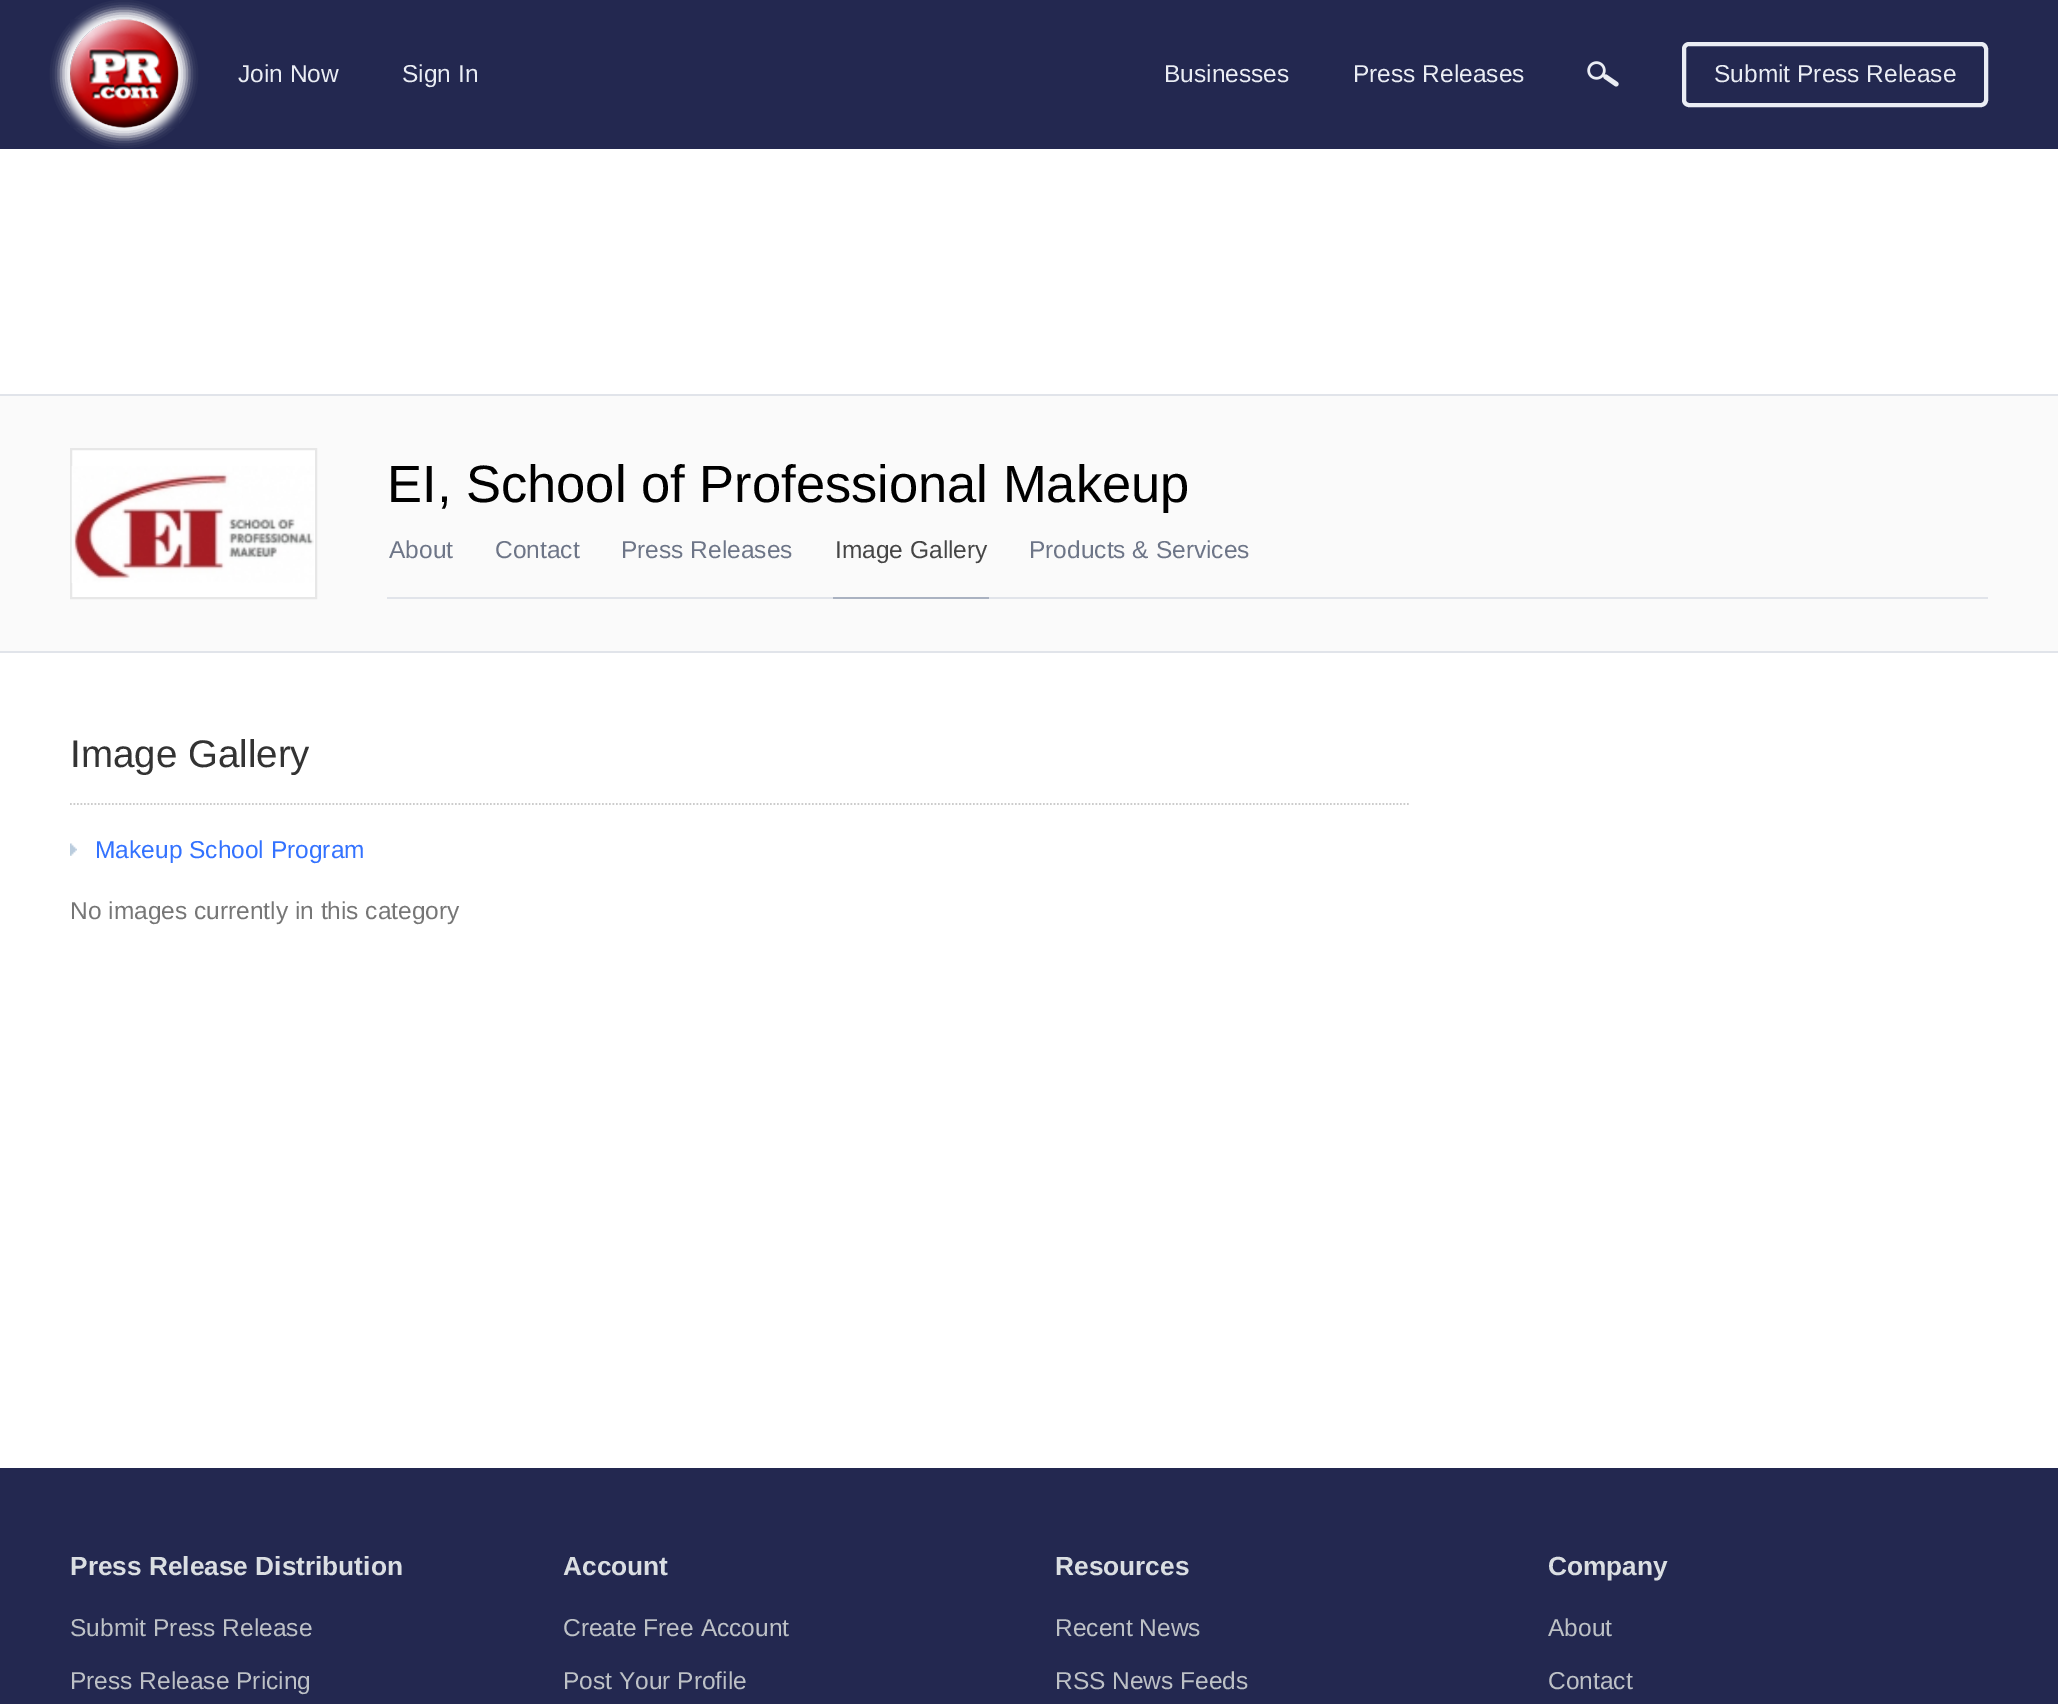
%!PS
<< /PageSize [2058 1704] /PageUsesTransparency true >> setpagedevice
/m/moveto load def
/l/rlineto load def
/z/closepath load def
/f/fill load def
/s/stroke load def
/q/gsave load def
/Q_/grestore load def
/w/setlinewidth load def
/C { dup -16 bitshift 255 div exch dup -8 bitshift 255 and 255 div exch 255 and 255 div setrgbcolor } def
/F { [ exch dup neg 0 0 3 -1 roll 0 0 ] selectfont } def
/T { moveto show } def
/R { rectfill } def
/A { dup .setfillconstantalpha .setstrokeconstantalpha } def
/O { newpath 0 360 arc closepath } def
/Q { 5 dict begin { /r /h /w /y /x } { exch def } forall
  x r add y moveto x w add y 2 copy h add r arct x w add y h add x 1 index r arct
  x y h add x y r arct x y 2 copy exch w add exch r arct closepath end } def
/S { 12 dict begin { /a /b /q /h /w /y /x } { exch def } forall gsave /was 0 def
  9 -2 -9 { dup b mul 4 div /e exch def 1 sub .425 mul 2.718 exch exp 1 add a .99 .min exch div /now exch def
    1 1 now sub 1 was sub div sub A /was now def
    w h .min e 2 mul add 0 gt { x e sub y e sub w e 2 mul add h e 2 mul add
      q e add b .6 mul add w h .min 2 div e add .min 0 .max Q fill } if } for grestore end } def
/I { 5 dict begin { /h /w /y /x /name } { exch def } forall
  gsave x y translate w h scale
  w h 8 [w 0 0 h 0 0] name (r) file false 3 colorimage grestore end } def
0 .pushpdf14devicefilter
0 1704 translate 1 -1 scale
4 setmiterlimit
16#FFFFFF C
0 0 2058 1704 R
16#232850 C
0 0 2058 149 R
16#FFFFFF C
61 11 126 126 63 5 1 S
124.5 73.5 54.5 O f
(1.rgb) 70 19 109 109 I
/LiberationSans-Regular 24.5 F
16#EAEDF4 C
(Join Now) 238 82 T
(Sign In) 402 82 T
(Businesses) 1164 82 T
(Press Releases) 1353 82 T
(2.rgb) 1587 61 32 26 I
4 w
1684 44 302 61 5 Q s
(Submit Press Release) 1714 82 T
16#FAFAFA C
0 396 2058 255 R
16#E1E4EA C
0 394 2058 2 R
0 651 2058 2 R
16#FFFFFF C
71 449 m 245 0 l 0 149 l -245 0 l z q f Q_
16#E7E7E7 C
2 w
s
(3.rgb) 71 466 243 117 I
/LiberationSans-Regular 52.5 F
16#000000 C
(EI, School of Professional Makeup) 387 502 T
16#E1E4EA C
387 597 1601 2 R
/LiberationSans-Regular 24.5 F
16#6D7587 C
(About) 389 558 T
(Contact) 495 558 T
(Press Releases) 621 558 T
16#AAB2C1 C
833 597 156 2 R
16#454545 C
(Image Gallery) 835 558 T
16#6D7587 C
(Products & Services) 1029 558 T
16#CCCCCC C
1.8 w
[1.75 1.75] 0 setdash
70 804 m 1340.5 0 l s
/LiberationSans-Regular 38.5 F
16#333333 C
(Image Gallery) 70 767 T
(4.rgb) 70 843 7 13 I
/LiberationSans-Regular 24.5 F
16#3372FF C
(Makeup School Program) 95 858 T
16#767676 C
(No images currently in this category) 70 919 T
16#232850 C
0 1468 2058 236 R
/LiberationSans-Bold 26.25 F
16#DADEE2 C
(Press Release Distribution) 70 1575 T
/LiberationSans-Regular 24.5 F
16#BDC1C6 C
(Submit Press Release) 70 1636 T
(Press Release Pricing) 70 1689 T
/LiberationSans-Bold 26.25 F
16#DADEE2 C
(Account) 563 1575 T
/LiberationSans-Regular 24.5 F
16#BDC1C6 C
(Create Free Account) 563 1636 T
(Post Your Profile) 563 1689 T
/LiberationSans-Bold 26.25 F
16#DADEE2 C
(Resources) 1055 1575 T
/LiberationSans-Regular 24.5 F
16#BDC1C6 C
(Recent News) 1055 1636 T
(RSS News Feeds) 1055 1689 T
/LiberationSans-Bold 26.25 F
16#DADEE2 C
(Company) 1548 1575 T
/LiberationSans-Regular 24.5 F
16#BDC1C6 C
(About) 1548 1636 T
(Contact) 1548 1689 T
.poppdf14devicefilter showpage
